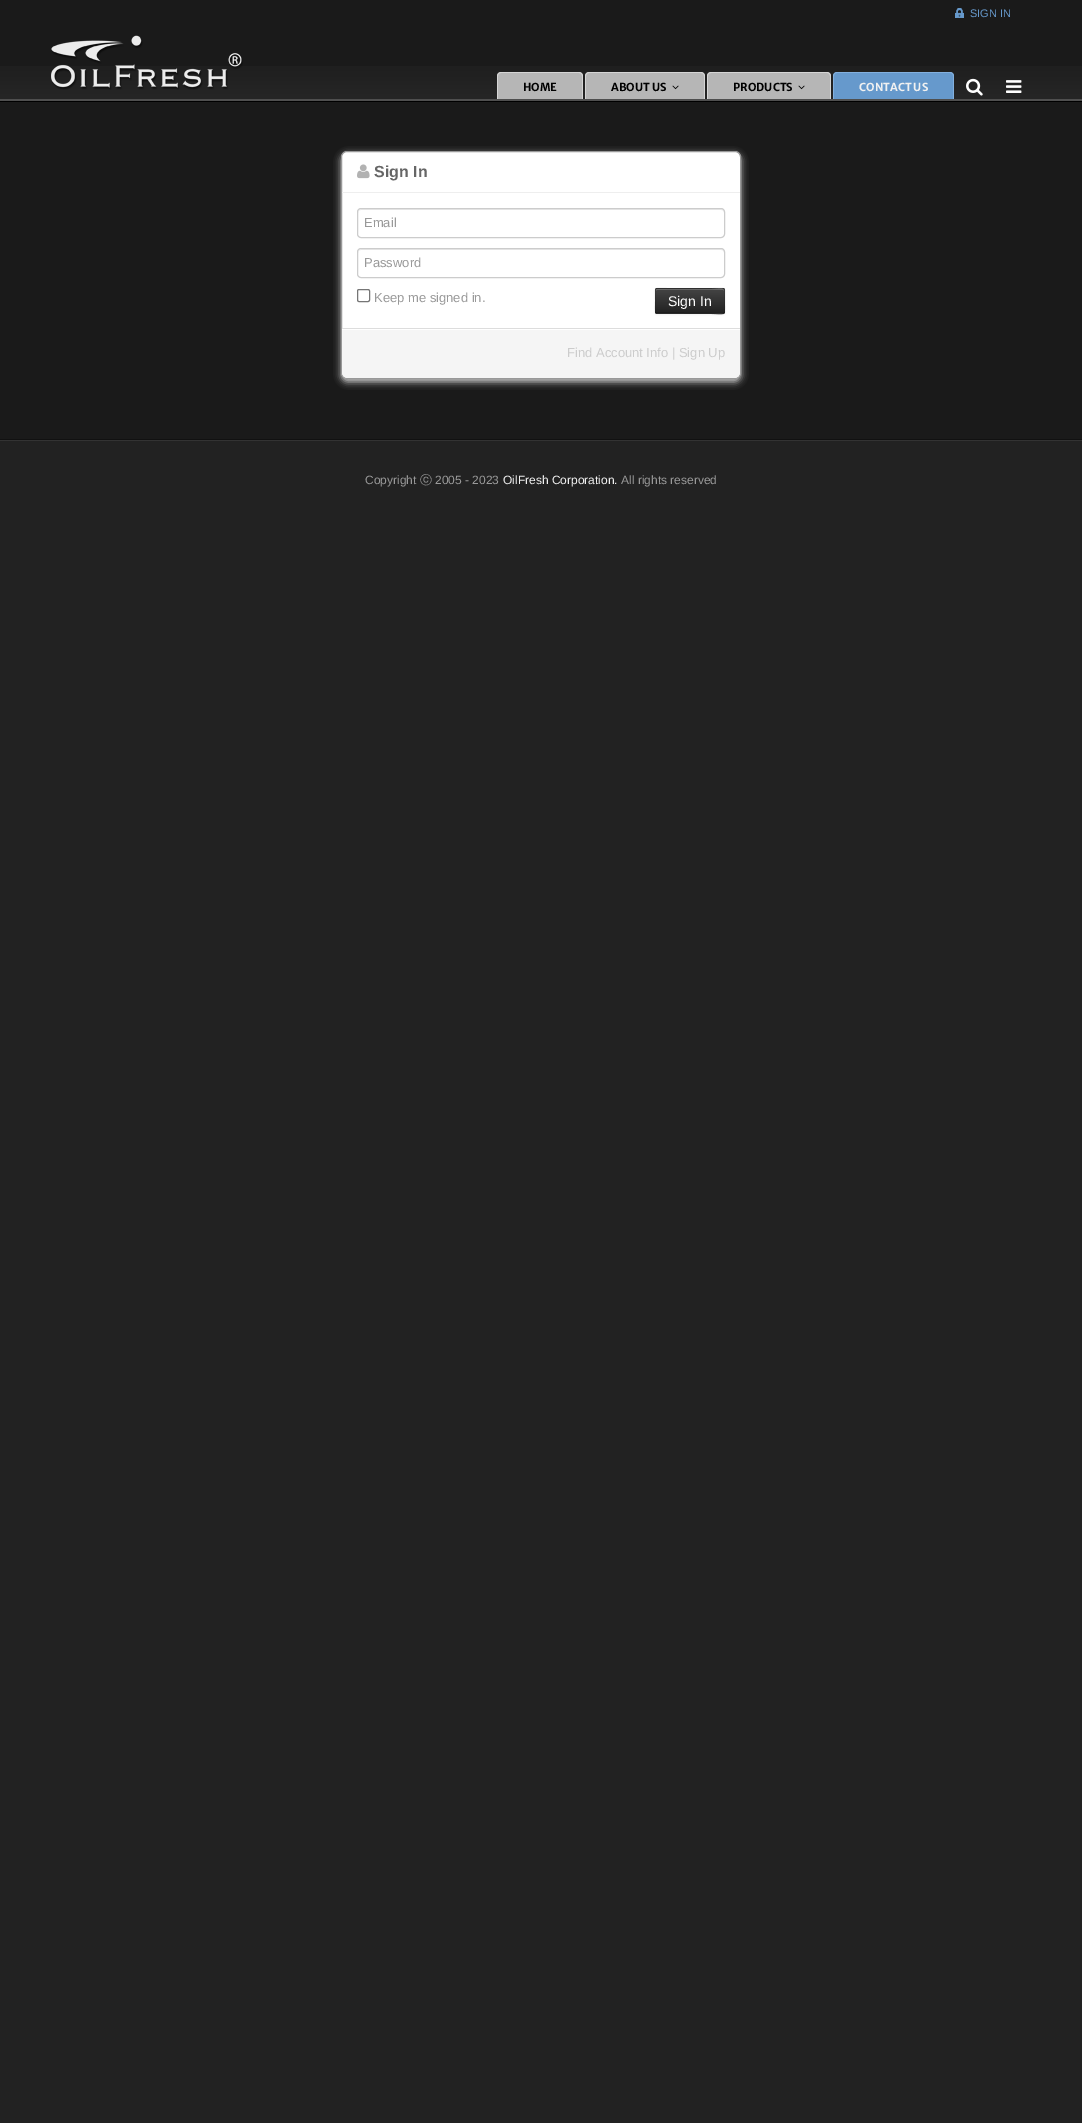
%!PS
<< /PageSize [1082 2123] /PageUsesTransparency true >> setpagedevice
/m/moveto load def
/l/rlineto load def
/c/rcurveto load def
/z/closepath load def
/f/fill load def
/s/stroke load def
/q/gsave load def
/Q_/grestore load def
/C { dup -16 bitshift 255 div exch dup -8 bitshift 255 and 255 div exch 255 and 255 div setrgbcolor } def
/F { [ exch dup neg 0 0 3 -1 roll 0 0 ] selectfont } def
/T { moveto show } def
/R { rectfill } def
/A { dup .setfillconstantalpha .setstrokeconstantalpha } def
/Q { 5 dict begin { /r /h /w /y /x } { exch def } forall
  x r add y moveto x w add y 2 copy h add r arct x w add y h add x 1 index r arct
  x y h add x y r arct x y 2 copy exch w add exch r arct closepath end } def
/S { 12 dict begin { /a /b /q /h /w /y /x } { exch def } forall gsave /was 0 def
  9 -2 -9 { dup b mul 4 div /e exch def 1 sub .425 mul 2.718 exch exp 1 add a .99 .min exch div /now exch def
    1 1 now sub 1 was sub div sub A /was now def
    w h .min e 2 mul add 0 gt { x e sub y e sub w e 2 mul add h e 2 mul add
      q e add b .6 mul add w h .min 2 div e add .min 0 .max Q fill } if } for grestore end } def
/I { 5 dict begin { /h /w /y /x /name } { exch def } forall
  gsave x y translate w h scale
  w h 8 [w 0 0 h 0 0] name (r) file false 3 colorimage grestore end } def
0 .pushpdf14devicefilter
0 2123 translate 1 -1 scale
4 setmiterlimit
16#222222 C
0 0 1082 2123 R
16#1A1A1A C
0 0 1082 439 R
(1.rgb) 0 66 1082 33 I
16#000000 C
0 101 1082 1 R
16#4F4F4F C
0 99 1082 2 R
(2.rgb) 955 8 9 10 I
/LiberationSans-Regular 11 F
16#6699CC C
(SIGN IN) 970 17 T
(3.rgb) 51 35 192 55 I
16#B6B6B6 C
501 72 m 78 0 l 2 0 4 2 4 4 c 0 23 l -86 0 l 0 -23 l 0 -2 2 -4 4 -4 c z f
16#D5D5D5 C
501 72 m 78 0 l 2 0 4 2 4 4 c 0 23 l -86 0 l 0 -23 l 0 -2 2 -4 4 -4 c z 501 73 m 78 0 l 2 0 3 1 3 3 c 0 23 l -84 0 l 0 -23 l 0 -2 1 -3 3 -3 c z eofill
/MerriweatherSans-Bold 11 F
16#000000 C
(HOME) 523 91 T
16#B6B6B6 C
589 72 m 112 0 l 2 0 4 2 4 4 c 0 23 l -120 0 l 0 -23 l 0 -2 2 -4 4 -4 c z f
16#D5D5D5 C
589 72 m 112 0 l 2 0 4 2 4 4 c 0 23 l -120 0 l 0 -23 l 0 -2 2 -4 4 -4 c z 589 73 m 112 0 l 2 0 3 1 3 3 c 0 23 l -118 0 l 0 -23 l 0 -2 1 -3 3 -3 c z eofill
16#000000 C
(ABOUT US) 611 91 T
(4.rgb) 672 85 7 5 I
16#B6B6B6 C
711 72 m 116 0 l 2 0 4 2 4 4 c 0 23 l -124 0 l 0 -23 l 0 -2 2 -4 4 -4 c z f
16#D5D5D5 C
711 72 m 116 0 l 2 0 4 2 4 4 c 0 23 l -124 0 l 0 -23 l 0 -2 2 -4 4 -4 c z 711 73 m 116 0 l 2 0 3 1 3 3 c 0 23 l -122 0 l 0 -23 l 0 -2 1 -3 3 -3 c z eofill
16#000000 C
(PRODUCTS) 733 91 T
(4.rgb) 798 85 7 5 I
16#6699CC C
837 72 m 113 0 l 2 0 4 2 4 4 c 0 23 l -121 0 l 0 -23 l 0 -2 2 -4 4 -4 c z f
16#83B0DE C
837 72 m 113 0 l 2 0 4 2 4 4 c 0 23 l -121 0 l 0 -23 l 0 -2 2 -4 4 -4 c z 837 73 m 113 0 l 2 0 3 1 3 3 c 0 23 l -119 0 l 0 -23 l 0 -2 1 -3 3 -3 c z eofill
16#F1F1F1 C
(CONTACT US) 859 91 T
(5.rgb) 966 78 17 18 I
(6.rgb) 1006 80 16 13 I
16#CCCCCC C
341 154 400 228 6 3.5 1 S
16#FFFFFF C
341.5 151.5 399 227 5.5 Q q f Q_
16#999999 C
s
16#EEEEEE C
342 192 398 1 R
(7.rgb) 357 164 13 15 I
/LiberationSans-Bold 16 F
16#666666 C
(Sign In) 374 177 T
16#ECECEC C
361 210 m 360 0 l 2 0 3 1 3 3 c 0 -2 -1 -4 -3 -4 c -360 0 l -2 1 l -1 3 l 0 -2 1 -3 3 -3 c z f
16#CCCCCC C
357.5 208.5 367 29 3.5 Q s
/LiberationSans-Regular 13 F
16#999999 C
(Email) 364 227 T
16#ECECEC C
361 250 m 360 0 l 2 0 3 1 3 3 c 0 -2 -1 -4 -3 -4 c -360 0 l -2 1 l -1 3 l 0 -2 1 -3 3 -3 c z f
16#CCCCCC C
357.5 248.5 367 29 3.5 Q s
16#999999 C
(Password) 364 267 T
16#767676 C
357.5 289.5 12 12 1.5 Q s
16#999999 C
(Keep me signed in.) 374 302 T
16#000000 C
655 289 70 26 2 1 .05 S
16#363636 C
655 288 70 26 2 Q f
q
655 288 70 26 2 Q clip newpath
q 655 289 m 70 0 l 0 24 l -70 0 l z clip newpath
<< /ShadingType 2 /ColorSpace /DeviceRGB /Coords [690 289 690 313] /Extend [true true] /Function << /FunctionType 2 /Domain [0 1] /C0 [.267 .267 .267] /C1 [.133 .133 .133] /N 1 >> >> shfill Q_
Q_
0.2 A
16#FFFFFF C
657 290 m 66 0 l 1 0 1 0 1 1 c 0 -5 -8 -2 -12 -2 c -55 0 l -1 0 -1 1 -1 2 c 0 -1 0 -1 1 -1 c z f
0.25 A
16#000000 C
724 313 m -3 3 -8 .5 -12 .5 c -56 -.5 l s
0.1 A
656 313 m -1.5 -1.5 -.5 -10 -.5 -12 c 0 -15.5 -3 -12.5 12.5 -12.5 c 44 0 l 15.5 0 12.5 -3 12.5 12.5 c 0 2 1 10.5 -.5 12 c s
/LiberationSans-Regular 14 F
1 A
16#FFFFFF C
(Sign In) 668 306 T
16#F5F5F5 C
342 328 m 398 0 l 0 44 l 0 3.5 -2.5 6 -6 6 c -386 0 l -3.5 0 -6 -2.5 -6 -6 c z f
16#FFFFFF C
342 329 398 1 R
16#DDDDDD C
342 328 398 1 R
/LiberationSans-Regular 13 F
16#CCCCCC C
(Find Account Info | Sign Up) 567 357 T
16#111111 C
0 439 1082 1 R
16#333333 C
0 440 1082 1 R
/LiberationSans-Regular 12 F
16#999999 C
(Copyright) 365 484 T
/WenQuanYiZenHei-Medium 12 F
(ⓒ) 420 484 T
/LiberationSans-Regular 12 F
(2005 - 2023) 435 484 T
16#F1F1F1 C
(OilFresh Corporation.) 503 484 T
16#999999 C
(All rights reserved) 621 484 T
.poppdf14devicefilter showpage
